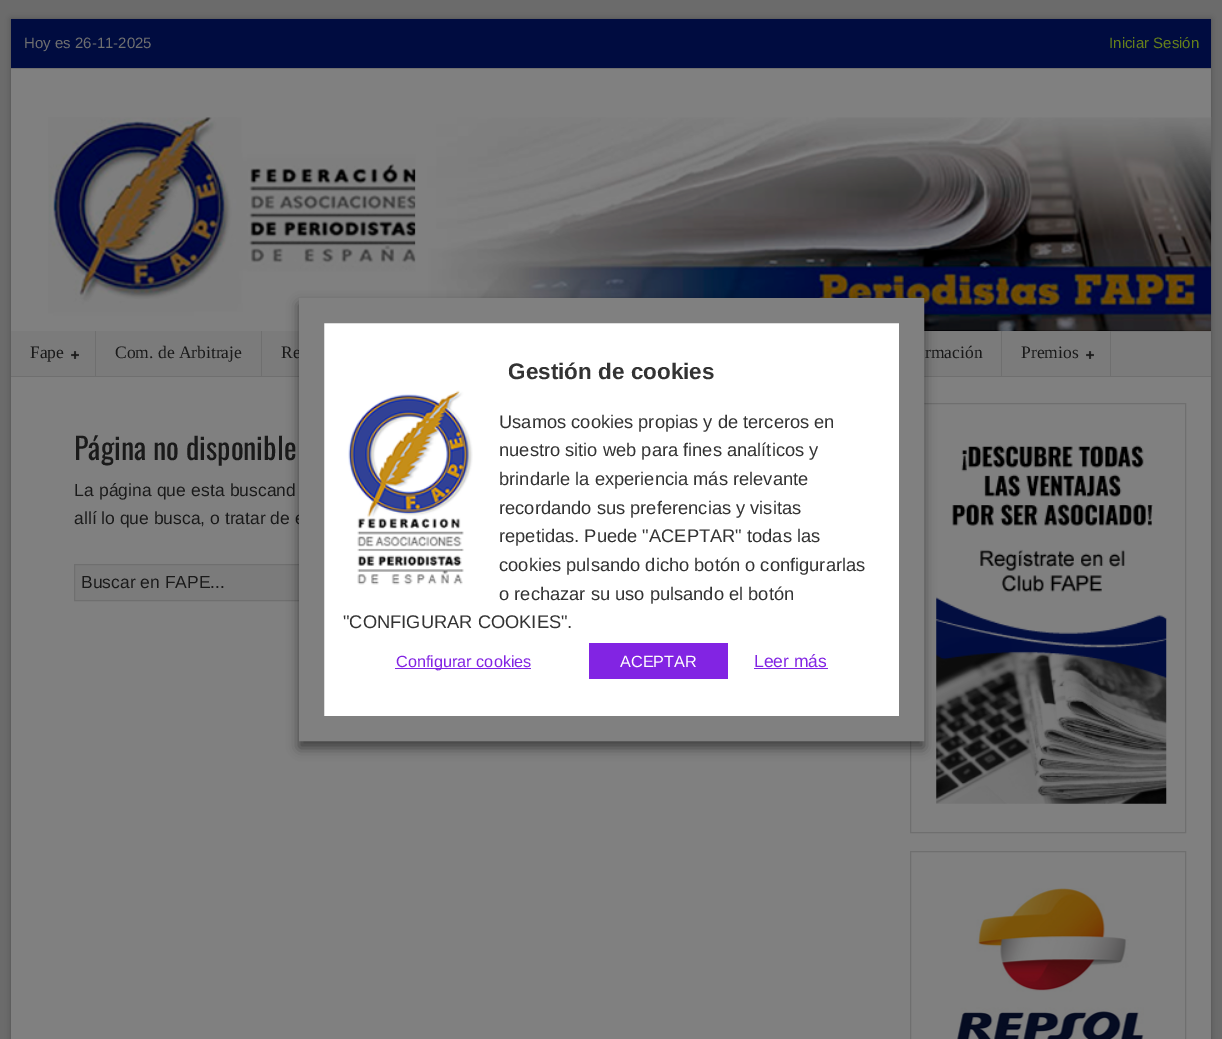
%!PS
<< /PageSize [1222 1039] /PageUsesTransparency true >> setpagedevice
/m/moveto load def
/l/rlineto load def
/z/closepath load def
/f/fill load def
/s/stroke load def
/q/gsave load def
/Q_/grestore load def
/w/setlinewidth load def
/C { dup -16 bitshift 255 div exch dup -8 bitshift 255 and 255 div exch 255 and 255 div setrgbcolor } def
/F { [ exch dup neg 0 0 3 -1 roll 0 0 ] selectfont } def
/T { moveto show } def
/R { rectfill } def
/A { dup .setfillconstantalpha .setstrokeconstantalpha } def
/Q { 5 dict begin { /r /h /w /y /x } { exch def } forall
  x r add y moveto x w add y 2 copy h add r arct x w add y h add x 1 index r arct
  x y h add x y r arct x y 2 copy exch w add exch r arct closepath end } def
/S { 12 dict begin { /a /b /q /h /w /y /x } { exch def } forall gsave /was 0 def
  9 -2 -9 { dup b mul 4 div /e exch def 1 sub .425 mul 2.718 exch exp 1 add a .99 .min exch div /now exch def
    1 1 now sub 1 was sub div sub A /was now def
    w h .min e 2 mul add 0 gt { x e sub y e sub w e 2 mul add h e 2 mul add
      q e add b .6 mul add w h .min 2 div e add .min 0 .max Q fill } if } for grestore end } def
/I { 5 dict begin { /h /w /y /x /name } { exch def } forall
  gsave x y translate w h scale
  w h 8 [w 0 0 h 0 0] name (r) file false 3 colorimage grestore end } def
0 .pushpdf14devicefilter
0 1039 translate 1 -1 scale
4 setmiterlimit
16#6B6B6B C
0 0 1222 1039 R
16#4D4D4D C
11 19 1200 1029 0 3 1 S
16#808080 C
11 69 1200 970 R
16#000C40 C
11 19 1200 49 R
16#6F6F6F C
11 68 1200 1 R
/LiberationSans-Regular 15 F
(Hoy es 26-11-2025) 24 48 T
16#66801A C
(Iniciar Sesión) 1109 48 T
16#7B7B7B C
11 331 1200 45 R
(1.rgb) 48 117 1164 215 I
16#6F6F6F C
11 376 1200 1 R
95 331 1 45 R
/LiberationSerif-Regular 17.5 F
16#1A1A1A C
(Fape) 30 358 T
(2.rgb) 71 351 8 8 I
16#6F6F6F C
261 331 1 45 R
16#1A1A1A C
(Com. de Arbitraje) 115 358 T
(Re) 281 358 T
16#7B7B7B C
924 331 77 1 R
16#6F6F6F C
1001 331 1 45 R
16#1A1A1A C
(rmación) 925 358 T
16#7B7B7B C
1003 331 107 1 R
16#6F6F6F C
1110 331 1 45 R
16#1A1A1A C
(Premios) 1021 358 T
(2.rgb) 1086 351 8 8 I
/Oswald-Regular 30 F
(Página no disponible) 74 460 T
/LiberationSans-Regular 17.5 F
74 496 m .5 0 32 (La página que esta buscand) widthshow
(allí lo que busca, o tratar de e) 74 524 T
16#7B7B7B C
75 565 224 35 R
16#6F6F6F C
74.5 564.5 234 36 rectstroke
16#1A1A1A C
(Buscar en FAPE...) 81 588 T
16#6F6F6F C
910.5 403.5 275 429 rectstroke
(3.rgb) 936 445 231 359 I
910.5 851.5 275 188 rectstroke
(4.rgb) 957 888 187 151 I
16#000000 C
299 304 625 444 0 6 .5 S
16#FFFFFF C
311.5 310.5 m 600 0 l 0 418 l -600 0 l z q f Q_
16#808080 C
25 w
s
/LiberationSans-Bold 22.5 F
16#333333 C
(Gestión de cookies) 508 379 T
(5.rgb) 348 390 125 195 I
/LiberationSans-Regular 18.3 F
(Usamos cookies propias y de terceros en) 499 428 T
(nuestro sitio web para fines analíticos y) 499 456 T
(brindarle la experiencia más relevante) 499 485 T
(recordando sus preferencias y visitas) 499 514 T
(repetidas. Puede "ACEPTAR" todas las) 499 542 T
(cookies pulsando dicho botón o configurarlas) 499 571 T
(o rechazar su uso pulsando el botón) 499 600 T
("CONFIGURAR COOKIES".) 343 628 T
16#8224E3 C
395 668 136 1 R
/LiberationSans-Regular 16.25 F
(Configurar cookies) 396 667 T
589 643 139 36 R
16#FFFFFF C
(ACEPTAR) 620 667 T
/LiberationSans-Regular 17.5 F
16#8224E3 C
(Leer más) 754 667 T
754 668 74 1 R
.poppdf14devicefilter showpage
